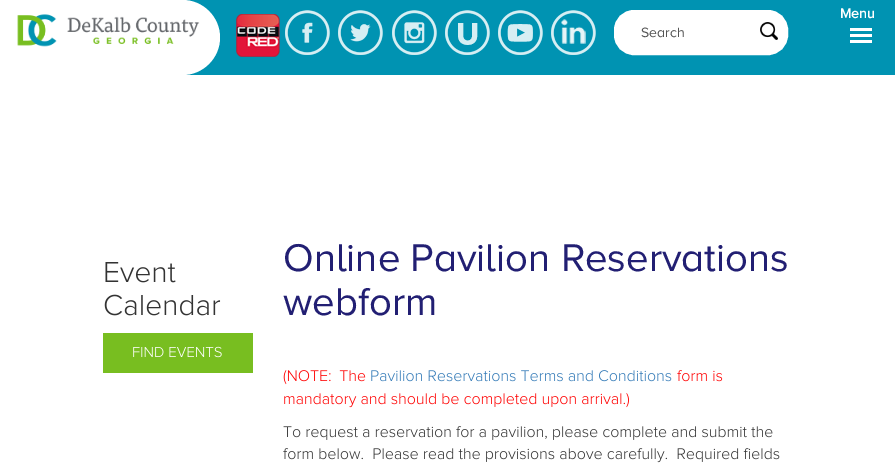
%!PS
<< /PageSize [895 470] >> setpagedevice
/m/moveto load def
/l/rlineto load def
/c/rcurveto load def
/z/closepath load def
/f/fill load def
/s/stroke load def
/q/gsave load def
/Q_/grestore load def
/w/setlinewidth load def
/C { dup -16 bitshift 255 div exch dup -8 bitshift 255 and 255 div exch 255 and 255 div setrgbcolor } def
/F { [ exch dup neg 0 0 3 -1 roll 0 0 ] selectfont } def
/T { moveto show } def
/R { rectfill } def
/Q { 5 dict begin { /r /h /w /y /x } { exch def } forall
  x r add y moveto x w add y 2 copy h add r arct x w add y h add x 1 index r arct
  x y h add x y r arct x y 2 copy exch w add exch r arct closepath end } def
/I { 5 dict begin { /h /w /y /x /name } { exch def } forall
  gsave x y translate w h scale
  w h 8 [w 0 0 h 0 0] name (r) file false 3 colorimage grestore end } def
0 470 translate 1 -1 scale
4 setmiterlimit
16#FFFFFF C
0 0 895 470 R
16#0093B2 C
183 0 712 75 R
16#FFFFFF C
0 0 m 182.5 0 l 20.5 0 37.5 17 37.5 37.5 c 0 20.5 -17 37.5 -37.5 37.5 c -182.5 0 l z f
(1.rgb) 17 14 183 33 I
/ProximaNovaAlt-Bold 14 F
(Menu) 840 18 T
850 28 22 3 R
850 34 22 3 R
850 40 22 3 R
(2.rgb) 236 14 44 43 I
(3.rgb) 285 10 45 45 I
(4.rgb) 338 10 45 45 I
(5.rgb) 392 10 45 45 I
(6.rgb) 445 10 45 45 I
(7.rgb) 498 10 45 45 I
(8.rgb) 551 10 45 45 I
615 11 172 43 19 Q q f Q_
2 w
s
/ProximaNovaAlt-Regular 14 F
16#555555 C
(Search) 641 37 T
(9.rgb) 760 22 18 18 I
(10.rgb) 105 262 71 21 I
(11.rgb) 104 294 117 22 I
16#78BE20 C
103 333 150 40 R
(12.rgb) 133 346 89 12 I
/ProximaNovaAlt-Regular 40 F
16#221F73 C
(Online Pavilion Reservations) 283 271 T
(webform) 283 315 T
(13.rgb) 283 370 48 15 I
(14.rgb) 339 370 27 12 I
(15.rgb) 371 370 301 12 I
(16.rgb) 677 370 46 12 I
(17.rgb) 284 393 345 15 I
(18.rgb) 283 426 490 14 I
(19.rgb) 283 448 497 15 I
showpage
